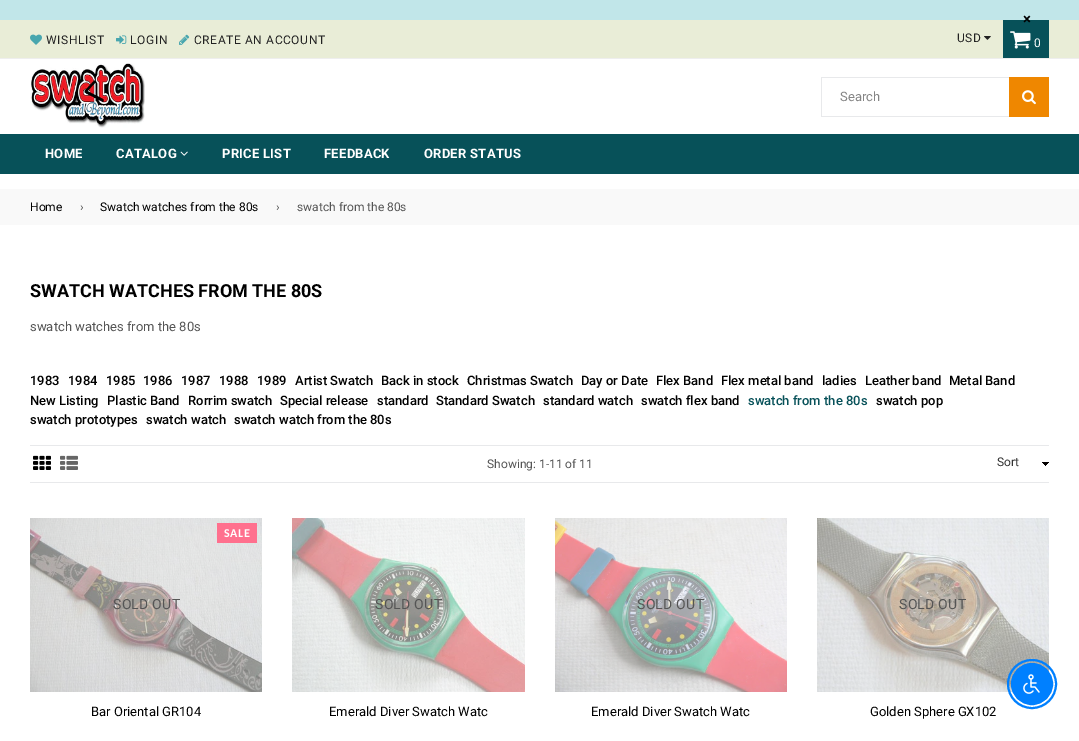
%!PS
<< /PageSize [1079 741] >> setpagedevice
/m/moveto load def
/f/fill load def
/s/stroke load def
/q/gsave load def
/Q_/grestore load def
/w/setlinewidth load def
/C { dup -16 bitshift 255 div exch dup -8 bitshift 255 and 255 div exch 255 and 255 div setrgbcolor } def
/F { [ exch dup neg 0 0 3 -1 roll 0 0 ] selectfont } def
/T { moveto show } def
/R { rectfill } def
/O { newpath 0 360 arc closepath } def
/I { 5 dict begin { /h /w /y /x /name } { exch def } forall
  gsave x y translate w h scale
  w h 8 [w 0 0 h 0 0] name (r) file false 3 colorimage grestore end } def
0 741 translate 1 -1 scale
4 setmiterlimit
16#FFFFFF C
0 0 1079 741 R
16#C1E6E9 C
0 0 1079 20 R
16#E9EDD7 C
0 20 1079 38 R
16#075159 C
1003 20 46 38 R
/Roboto-Bold 15 F
16#000000 C
(×) 1023 24 T
16#EEEEEE C
0 58 1079 1 R
(1.rgb) 30 34 12 11 I
/Roboto-Regular 12 F
16#222222 C
46 44 m .6 0 (WISHLIST) ashow
(2.rgb) 116 35 11 9 I
130 44 m .6 0 (LOGIN) ashow
(3.rgb) 179 34 11 11 I
194 44 m .6 0 (CREATE AN ACCOUNT) ashow
957 42 m .6 0 (USD) ashow
(4.rgb) 984 36 7 4 I
(5.rgb) 1010 31 21 18 I
16#FFFFFF C
1034 47 m 1 0 (0) ashow
(6.rgb) 30 63 115 65 I
16#E8E9EB C
821 77 188 1 R
821 116 188 1 R
821 77 1 40 R
/Roboto-Regular 13 F
16#858585 C
(Search) 840 101 T
16#EF8700 C
1009 77 40 40 R
(7.rgb) 1022 90 14 15 I
16#075159 C
0 134 1079 40 R
/Roboto-Bold 13 F
16#FFFFFF C
45 158 m .25 0 (HOME) ashow
116 158 m .25 0 (CATALOG) ashow
(8.rgb) 180 151 8 5 I
222 158 m .25 0 (PRICE LIST) ashow
324 158 m .25 0 (FEEDBACK) ashow
424 158 m .25 0 (ORDER STATUS) ashow
16#F9F9F9 C
0 189 1079 36 R
/Roboto-Regular 12 F
16#000000 C
(Home) 30 211 T
16#555555 C
(›) 80 211 T
16#000000 C
(Swatch watches from the 80s) 100 211 T
16#555555 C
(›) 276 211 T
(swatch from the 80s) 297 211 T
/Roboto-Bold 18 F
16#000000 C
(SWATCH WATCHES FROM THE 80S) 30 297 T
/Roboto-Regular 13 F
16#555555 C
(swatch watches from the 80s) 30 331 T
/Roboto-Medium 13 F
16#000000 C
(1983) 30 385 T
(1984) 68 385 T
(1985) 106 385 T
(1986) 143 385 T
(1987) 181 385 T
(1988) 219 385 T
(1989) 257 385 T
(Artist Swatch) 295 385 T
(Back in stock) 381 385 T
(Christmas Swatch) 467 385 T
(Day or Date) 581 385 T
(Flex Band) 656 385 T
(Flex metal band) 721 385 T
(ladies) 822 385 T
(Leather band) 865 385 T
(Metal Band) 949 385 T
(New Listing) 30 405 T
(Plastic Band) 107 405 T
(Rorrim swatch) 188 405 T
(Special release) 280 405 T
(standard) 377 405 T
(Standard Swatch) 436 405 T
(standard watch) 543 405 T
(swatch flex band) 641 405 T
16#075159 C
(swatch from the 80s) 748 405 T
16#000000 C
(swatch pop) 876 405 T
(swatch prototypes) 30 424 T
(swatch watch) 146 424 T
(swatch watch from the 80s) 234 424 T
16#E8E9EB C
30 445 1019 1 R
30 482 1019 1 R
(9.rgb) 33 455 18 15 I
(10.rgb) 60 455 18 15 I
/Roboto-Regular 12 F
16#555555 C
(Showing: 1-11 of 11) 487 468 T
(11.rgb) 1042 462 7 4 I
16#333333 C
(Sort) 997 466 T
(12.rgb) 30 518 232 174 I
16#FF708E C
217 523 40 20 R
/Carlito-Bold 12 F
16#FFFFFF C
224 537 m .5 0 (SALE) ashow
/Roboto-Regular 14 F
16#555555 C
113 609 m .25 0 (SOLD OUT) ashow
/Roboto-Regular 13 F
16#000000 C
(Bar Oriental GR104) 91 716 T
(13.rgb) 292 518 233 174 I
/Roboto-Regular 14 F
16#555555 C
375 609 m .25 0 (SOLD OUT) ashow
/Roboto-Regular 13 F
16#000000 C
(Emerald Diver Swatch Watc) 329 716 T
(14.rgb) 555 518 232 174 I
/Roboto-Regular 14 F
16#555555 C
637 609 m .25 0 (SOLD OUT) ashow
/Roboto-Regular 13 F
16#000000 C
(Emerald Diver Swatch Watc) 591 716 T
(15.rgb) 817 518 232 174 I
/Roboto-Regular 14 F
16#555555 C
899 609 m .25 0 (SOLD OUT) ashow
/Roboto-Regular 13 F
16#000000 C
(Golden Sphere GX102) 870 716 T
16#0080FF C
2 w
1032 684 24 O s
1032 684 20.5 O q f Q_
1 w
s
(16.rgb) 1023 674 17 20 I
showpage
